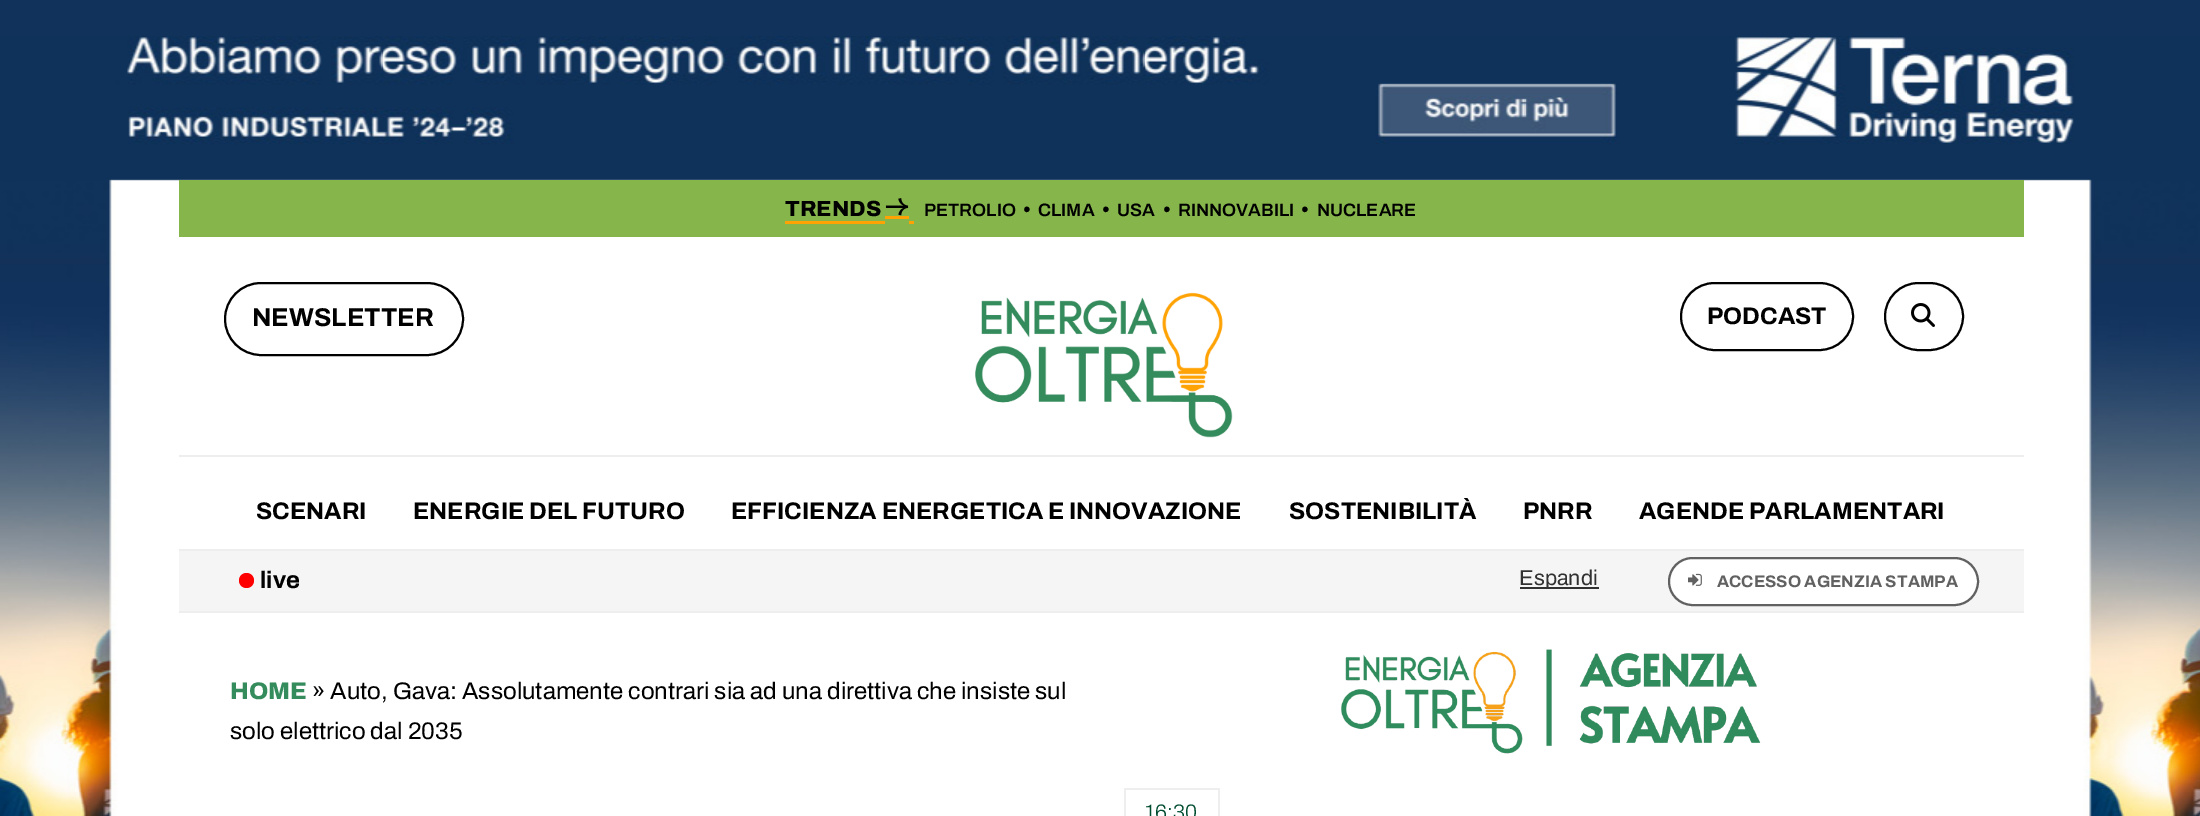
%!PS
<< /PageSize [2200 816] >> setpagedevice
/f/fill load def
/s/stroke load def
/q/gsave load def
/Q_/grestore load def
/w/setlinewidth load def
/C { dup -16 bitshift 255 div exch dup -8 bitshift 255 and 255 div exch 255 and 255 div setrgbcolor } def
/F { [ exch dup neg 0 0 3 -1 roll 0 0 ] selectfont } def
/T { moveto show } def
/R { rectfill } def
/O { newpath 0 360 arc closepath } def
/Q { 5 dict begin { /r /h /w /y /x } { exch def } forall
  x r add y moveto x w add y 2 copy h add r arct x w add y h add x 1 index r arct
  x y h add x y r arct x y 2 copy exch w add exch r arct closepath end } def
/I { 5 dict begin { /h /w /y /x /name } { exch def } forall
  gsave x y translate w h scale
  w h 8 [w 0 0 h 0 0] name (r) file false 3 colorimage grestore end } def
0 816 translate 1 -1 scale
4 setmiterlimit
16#11325B C
0 0 2200 816 R
(1.rgb) 0 36 2200 780 I
16#85B54B C
179 180 1845 57 R
/Archivo-ExtraBold 22 F
16#000000 C
(TRENDS) 785 216 T
16#FFA305 C
785 221 100 3 R
885 216 24 3 R
909 221 5 3 R
(2.rgb) 885 198 24 18 I
/Archivo-SemiBold 18 F
16#000000 C
(PETROLIO) 924 216 T
/LiberationSerif-Bold 13 F
(●) 1023 213 T
/Archivo-SemiBold 18 F
(CLIMA) 1038 216 T
/LiberationSerif-Bold 13 F
(●) 1102 213 T
/Archivo-SemiBold 18 F
(USA) 1117 216 T
/LiberationSerif-Bold 13 F
(●) 1163 213 T
/Archivo-SemiBold 18 F
(RINNOVABILI) 1178 216 T
/LiberationSerif-Bold 13 F
(●) 1301 213 T
/Archivo-SemiBold 18 F
(NUCLEARE) 1317 216 T
2 w
225 283 238 72 36 Q s
/Archivo-Bold 25.75 F
(NEWSLETTER) 252 326 T
(3.rgb) 975 292 258 146 I
1681 283 172 67 33.5 Q s
/Archivo-Bold 24 F
(PODCAST) 1707 324 T
1885 283 78 67 33.5 Q s
(4.rgb) 1911 303 24 24 I
16#EEEEEE C
179 455 1845 2 R
179 549 1845 2 R
16#000000 C
(SCENARI) 256 519 T
(ENERGIE DEL FUTURO) 413 519 T
(EFFICIENZA ENERGETICA E INNOVAZIONE) 731 519 T
(SOSTENIBILITÀ) 1289 519 T
(PNRR) 1523 519 T
(AGENDE PARLAMENTARI) 1639 519 T
16#F5F5F5 C
179 551 1845 60 R
16#FF0000 C
246.5 580.5 7.5 O f
16#000000 C
(live) 260 588 T
16#313131 C
1520 587 79 2 R
/Archivo-Regular 21.5 F
(Espandi) 1519 585 T
16#FFFFFF C
1669 558 309 47 23.5 Q q f Q_
16#616161 C
s
(5.rgb) 1688 573 14 13 I
/Archivo-Bold 16.75 F
(ACCESSO AGENZIA STAMPA) 1717 587 T
16#EEEEEE C
179 611 1845 2 R
/Archivo-ExtraBold 24 F
16#348B5C C
(HOME) 230 699 T
/Archivo-Regular 24 F
16#000000 C
(» Auto, Gava: Assolutamente contrari sia ad una direttiva che insiste sul) 312 699 T
(solo elettrico dal 2035) 230 739 T
(6.rgb) 1341 649 420 105 I
16#EEEEEE C
1124 788 96 2 R
1218 788 2 28 R
1124 788 2 28 R
/Archivo-Light 21 F
16#004C30 C
(16:30) 1145 819 T
showpage
